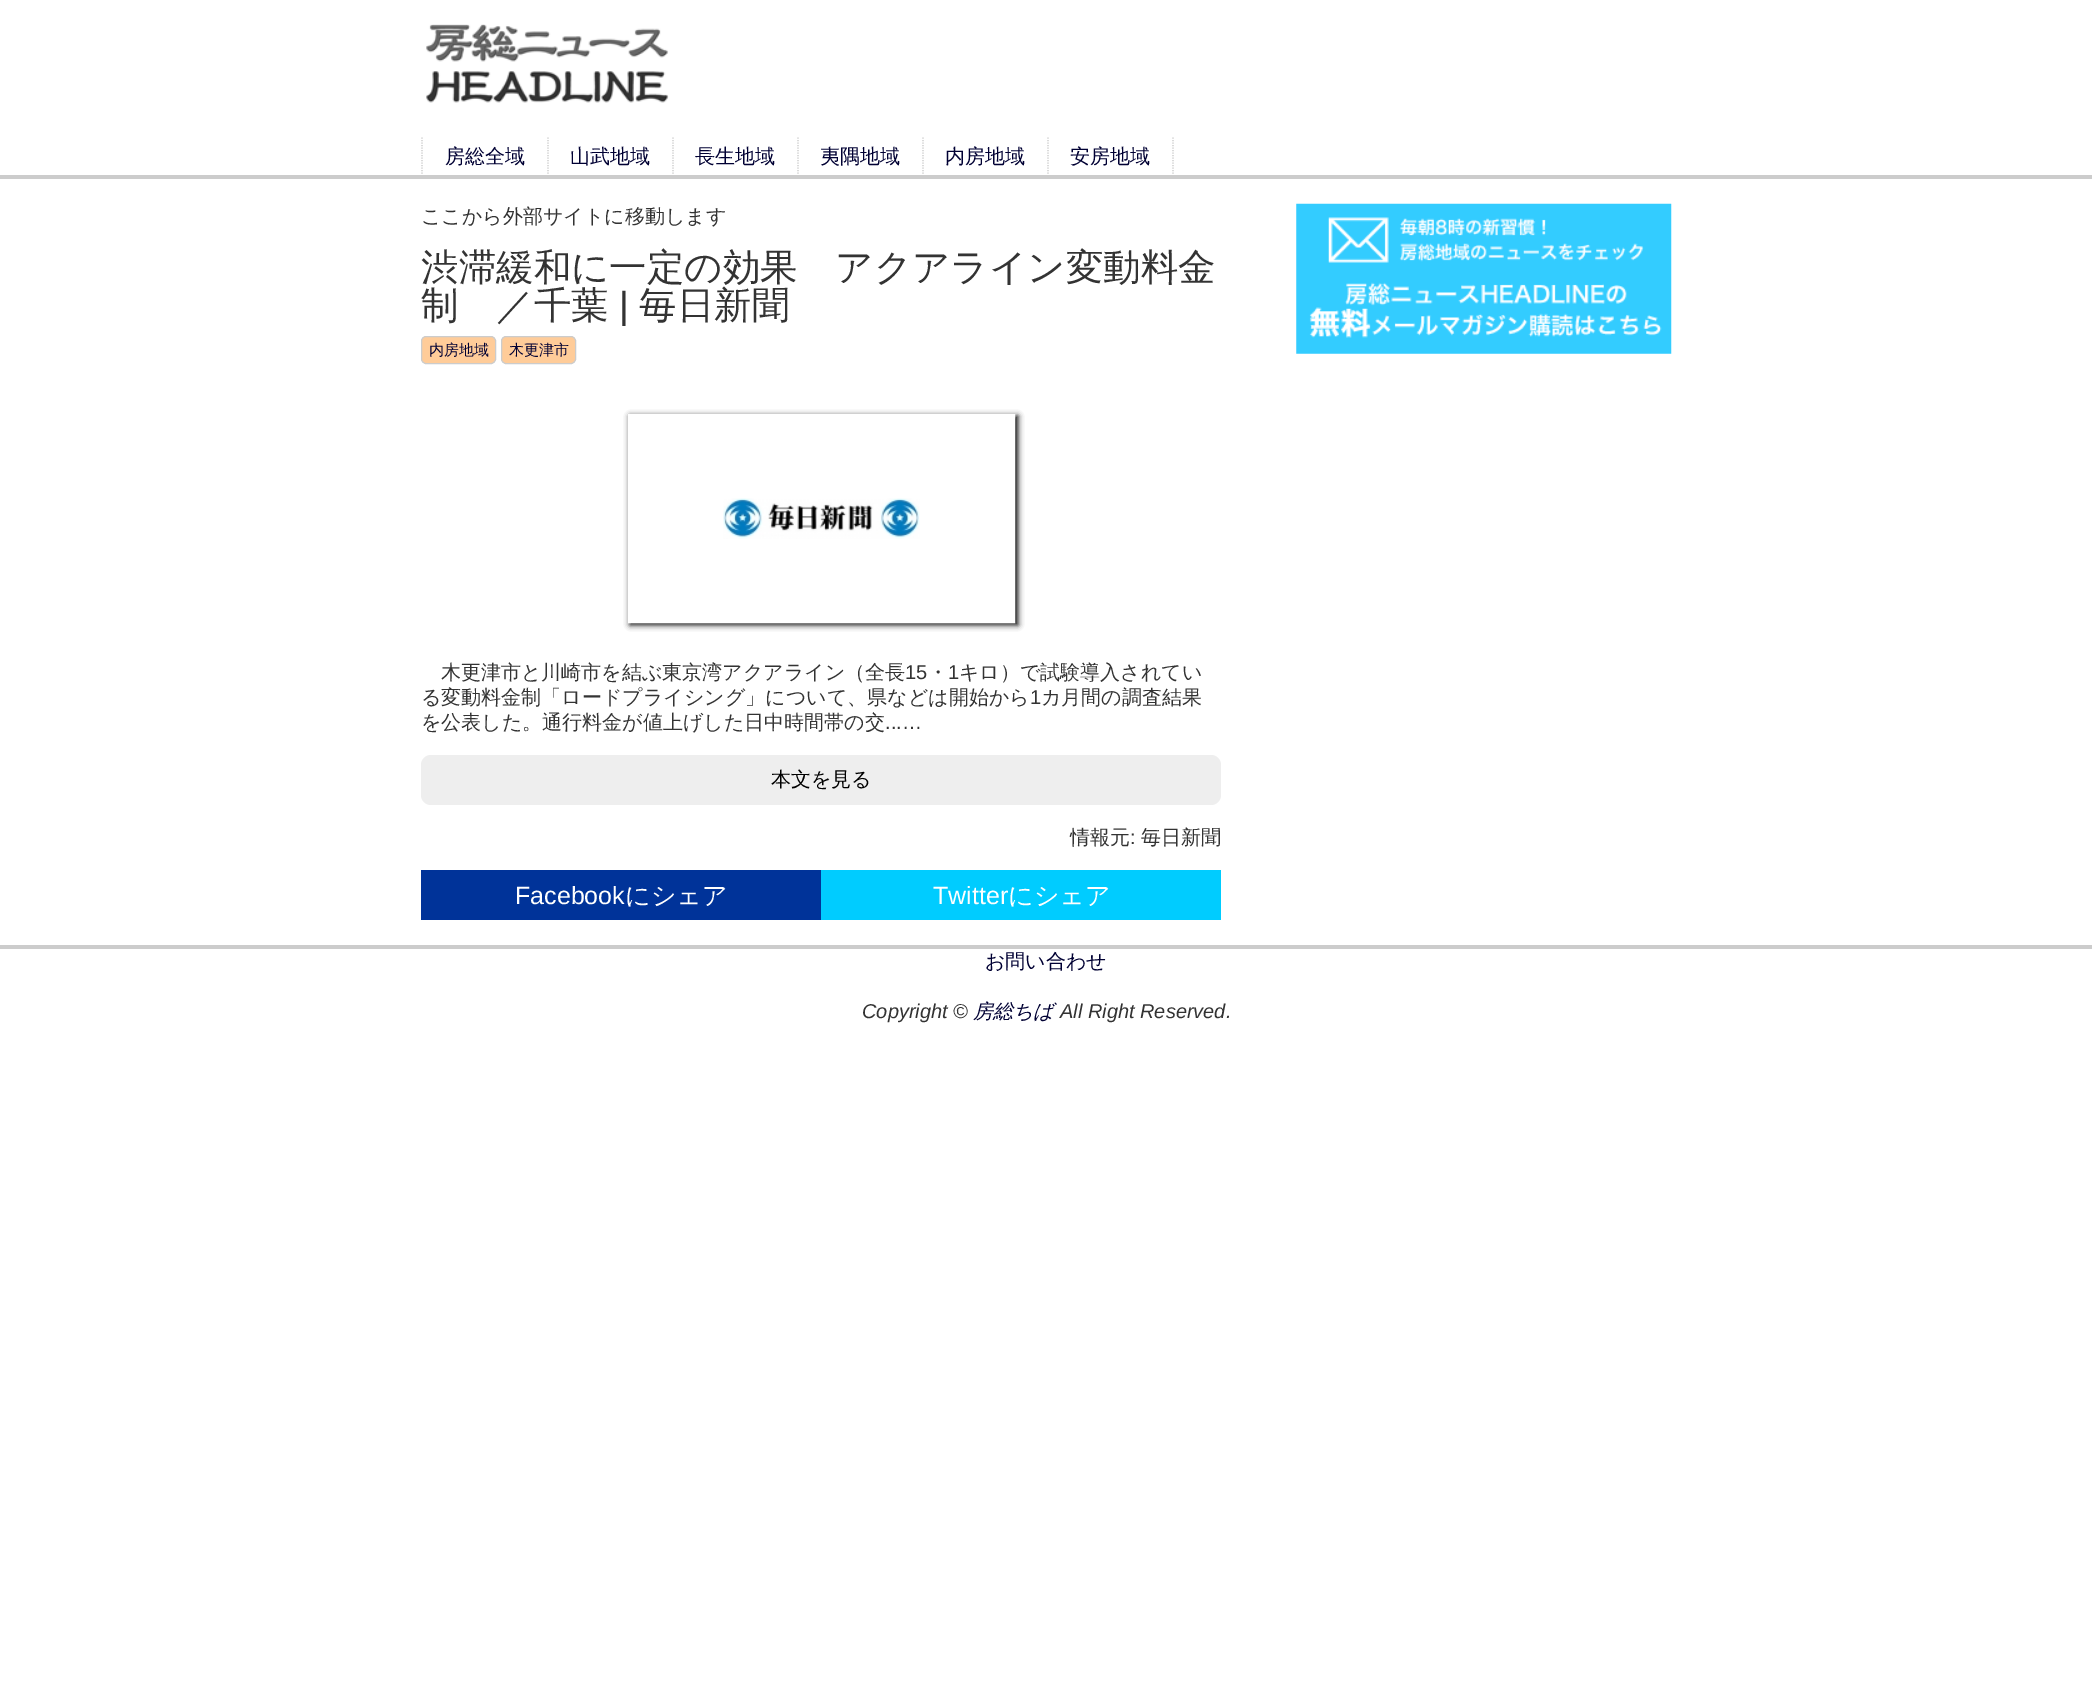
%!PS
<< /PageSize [2092 1696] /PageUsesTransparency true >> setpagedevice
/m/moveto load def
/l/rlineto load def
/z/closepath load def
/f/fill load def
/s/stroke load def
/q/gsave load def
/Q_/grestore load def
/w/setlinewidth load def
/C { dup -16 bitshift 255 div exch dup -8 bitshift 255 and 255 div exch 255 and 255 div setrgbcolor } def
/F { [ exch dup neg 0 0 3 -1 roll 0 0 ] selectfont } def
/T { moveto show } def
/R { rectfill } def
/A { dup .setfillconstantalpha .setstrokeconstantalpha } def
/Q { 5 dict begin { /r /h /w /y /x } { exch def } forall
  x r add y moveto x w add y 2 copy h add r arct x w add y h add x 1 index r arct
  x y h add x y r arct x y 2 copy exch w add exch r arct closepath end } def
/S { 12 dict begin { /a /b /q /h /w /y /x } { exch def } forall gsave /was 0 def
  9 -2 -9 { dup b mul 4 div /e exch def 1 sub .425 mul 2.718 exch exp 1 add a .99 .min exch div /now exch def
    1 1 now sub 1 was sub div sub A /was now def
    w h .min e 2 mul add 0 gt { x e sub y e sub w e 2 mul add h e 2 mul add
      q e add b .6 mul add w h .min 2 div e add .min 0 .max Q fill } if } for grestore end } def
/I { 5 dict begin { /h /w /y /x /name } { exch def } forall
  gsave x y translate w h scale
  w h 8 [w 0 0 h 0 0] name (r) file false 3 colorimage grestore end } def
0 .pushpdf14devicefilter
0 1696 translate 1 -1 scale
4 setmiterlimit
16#FFFFFF C
0 0 2092 1696 R
16#CCCCCC C
0 175 2092 4 R
(1.rgb) 426 24 243 79 I
1.2 w
[1.25 1.25] 0 setdash
422 137.5 m 0 37.5 l s
548 137.5 m 0 37.5 l s
/WenQuanYiZenHei-Medium 20 F
16#000033 C
(房総全域) 445 163 T
16#CCCCCC C
673 137.5 m 0 37.5 l s
16#000033 C
(山武地域) 570 163 T
16#CCCCCC C
798 137.5 m 0 37.5 l s
16#000033 C
(長生地域) 695 163 T
16#CCCCCC C
923 137.5 m 0 37.5 l s
16#000033 C
(夷隅地域) 820 163 T
16#CCCCCC C
1048 137.5 m 0 37.5 l s
16#000033 C
(内房地域) 945 163 T
16#CCCCCC C
1173 137.5 m 0 37.5 l s
16#000033 C
(安房地域) 1070 163 T
16#333333 C
(ここから外部サイトに移動します) 421 223 T
/WenQuanYiZenHei-Medium 37.5 F
(渋滞緩和に一定の効果　アクアライン変動料金) 421 280 T
(制　／千葉) 421 318 T
/LiberationSans-Regular 37.5 F
(|) 619 318 T
/WenQuanYiZenHei-Medium 37.5 F
(毎日新聞) 639 318 T
16#FFCC99 C
421.5 336.5 74 27 4.5 Q q f Q_
16#CCCCCC C
1 w
[] 0 setdash
s
/WenQuanYiZenHei-Medium 15 F
16#000033 C
(内房地域) 429 355 T
16#FFCC99 C
501.5 336.5 74 27 4.5 Q q f Q_
16#CCCCCC C
s
16#000033 C
(木更津市) 509 355 T
q
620 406 m 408 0 l 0 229 l -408 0 l z 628 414 m 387 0 l 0 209 l -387 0 l z eoclip newpath
16#000000 C
630 416 388 209 0 3 1 S
Q_
16#FFFFFF C
6 w
631 417 381 203 rectstroke
(2.rgb) 723 498 197 41 I
/WenQuanYiZenHei-Medium 20 F
16#333333 C
(木更津市と川崎市を結ぶ東京湾アクアライン（全長) 441 679 T
/LiberationSans-Regular 20 F
(15) 905 679 T
/WenQuanYiZenHei-Medium 20 F
(・) 928 679 T
/LiberationSans-Regular 20 F
(1) 948 679 T
/WenQuanYiZenHei-Medium 20 F
(キロ）で試験導入されてい) 959 679 T
(る変動料金制「ロードプライシング」について、県などは開始から) 421 704 T
/LiberationSans-Regular 20 F
(1) 1030 704 T
/WenQuanYiZenHei-Medium 20 F
(カ月間の調査結果) 1041 704 T
(を公表した。通行料金が値上げした日中時間帯の交) 421 729 T
/LiberationSans-Regular 20 F
(...…) 885 729 T
16#EEEEEE C
421 755 800 50 10 Q f
/WenQuanYiZenHei-Medium 20 F
16#000000 C
(本文を見る) 771 786 T
16#333333 C
(情報元) 1070 844 T
/LiberationSans-Regular 20 F
(:) 1130 844 T
/WenQuanYiZenHei-Medium 20 F
(毎日新聞) 1141 844 T
16#003399 C
421 870 400 50 R
/LiberationSans-Regular 25 F
16#FFFFFF C
(Facebook) 515 904 T
/WenQuanYiZenHei-Medium 25 F
(にシェア) 625 904 T
16#00CCFF C
821 870 400 50 R
/LiberationSans-Regular 25 F
16#FFFFFF C
(Twitter) 933 904 T
/WenQuanYiZenHei-Medium 25 F
(にシェア) 1008 904 T
(3.rgb) 1296 203 376 151 I
16#CCCCCC C
0 945 2092 4 R
/WenQuanYiZenHei-Medium 20 F
16#000033 C
(お問い合わせ) 985 968 T
/LiberationSans-Italic 20 F
16#333333 C
(Copyright ©) 862 1018 T
/WenQuanYiZenHei-MediumItalic 20 F
16#000033 C
(房総ちば) 973 1018 T
/LiberationSans-Italic 20 F
16#333333 C
(All Right Reserved.) 1060 1018 T
.poppdf14devicefilter showpage
